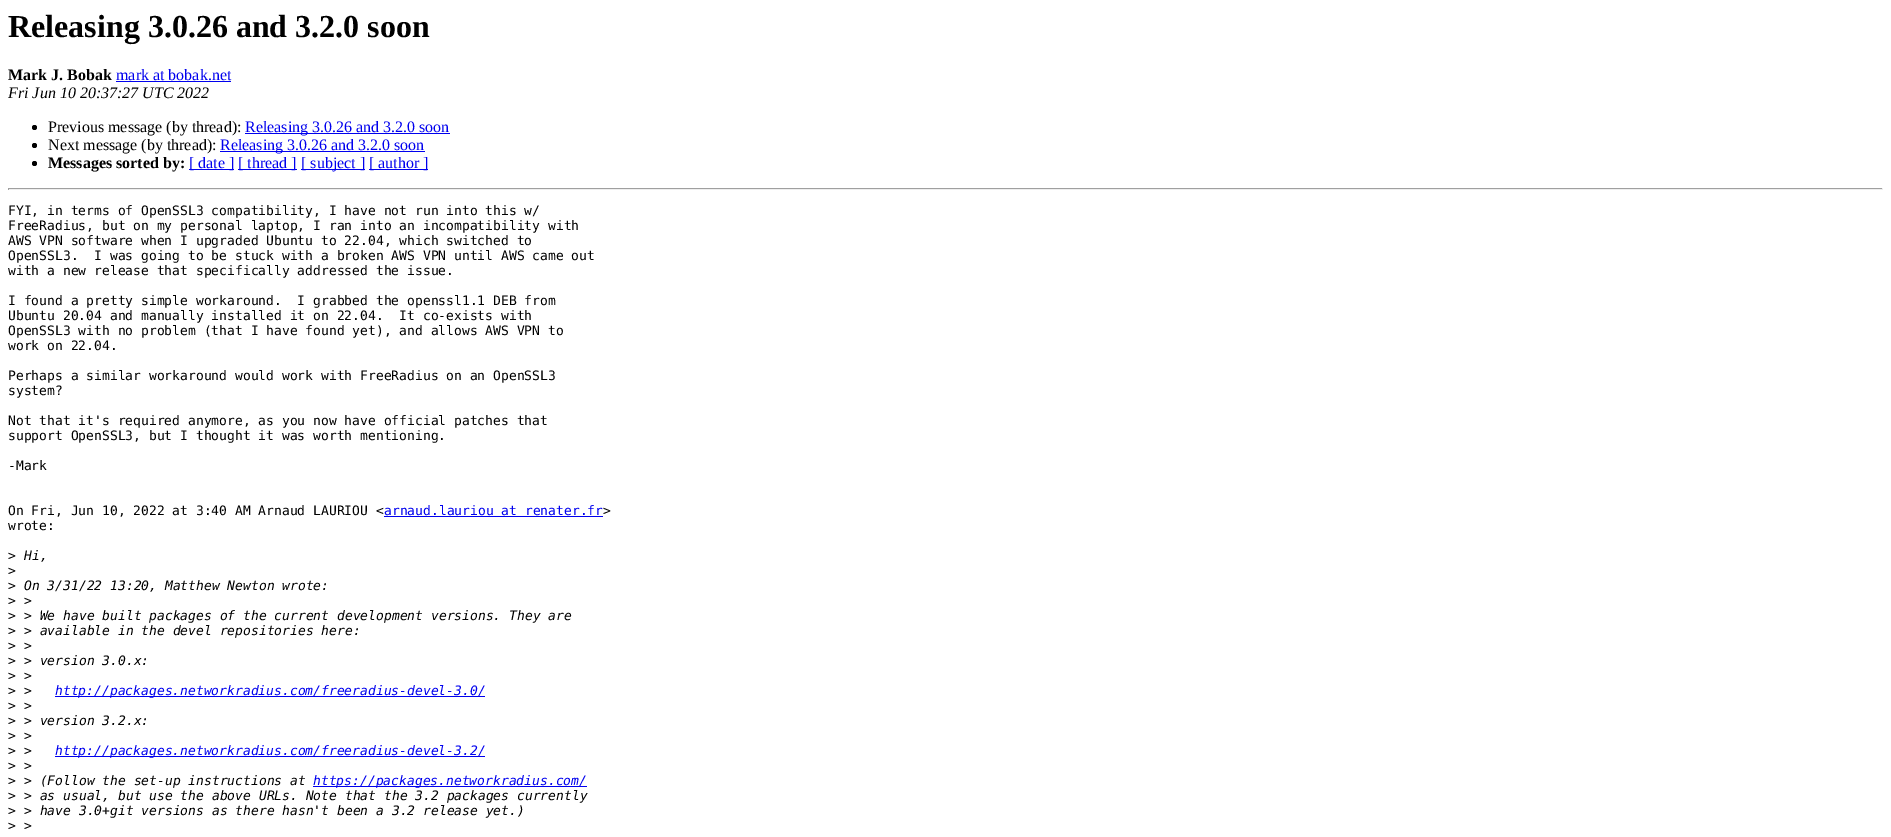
%!PS
<< /PageSize [1891 837] >> setpagedevice
/f/fill load def
/C { dup -16 bitshift 255 div exch dup -8 bitshift 255 and 255 div exch 255 and 255 div setrgbcolor } def
/F { [ exch dup neg 0 0 3 -1 roll 0 0 ] selectfont } def
/T { moveto show } def
/R { rectfill } def
/O { newpath 0 360 arc closepath } def
0 837 translate 1 -1 scale
4 setmiterlimit
16#FFFFFF C
0 0 1891 837 R
/LiberationSerif-Bold 32 F
16#000000 C
(Releasing 3.0.26 and 3.2.0 soon) 8 37 T
/LiberationSerif-Bold 16 F
(Mark J. Bobak) 8 80 T
/LiberationSerif-Regular 16 F
16#0000EE C
(mark at bobak.net) 116 80 T
116 81 115 1 R
/LiberationSerif-Italic 16 F
16#000000 C
(Fri Jun 10 20:37:27 UTC 2022) 8 98 T
34.5 127.5 2.5 O f
/LiberationSerif-Regular 16 F
(Previous message \(by thread\):) 48 132 T
16#0000EE C
245 133 205 1 R
(Releasing 3.0.26 and 3.2.0 soon) 245 132 T
16#000000 C
34.5 145.5 2.5 O f
(Next message \(by thread\):) 48 150 T
16#0000EE C
220 151 205 1 R
(Releasing 3.0.26 and 3.2.0 soon) 220 150 T
16#000000 C
34.5 163.5 2.5 O f
/LiberationSerif-Bold 16 F
(Messages sorted by:) 48 168 T
16#0000EE C
189 169 45 1 R
/LiberationSerif-Regular 16 F
([ date ]) 189 168 T
238 169 59 1 R
([ thread ]) 238 168 T
301 169 64 1 R
([ subject ]) 301 168 T
369 169 59 1 R
([ author ]) 369 168 T
16#9F9F9F C
8 188 1875 1 R
16#EEEEEE C
1882 188 1 2 R
8 189 1875 1 R
16#9F9F9F C
8 188 1 2 R
/DejaVuSansMono-Regular 13 F
16#000000 C
(FYI, in terms of OpenSSL3 compatibility, I have not run into this w/) 8 215 T
(FreeRadius, but on my personal laptop, I ran into an incompatibility with) 8 230 T
(AWS VPN software when I upgraded Ubuntu to 22.04, which switched to) 8 245 T
(OpenSSL3.  I was going to be stuck with a broken AWS VPN until AWS came out) 8 260 T
(with a new release that specifically addressed the issue.) 8 275 T
(I found a pretty simple workaround.  I grabbed the openssl1.1 DEB from) 8 305 T
(Ubuntu 20.04 and manually installed it on 22.04.  It co-exists with) 8 320 T
(OpenSSL3 with no problem \(that I have found yet\), and allows AWS VPN to) 8 335 T
(work on 22.04.) 8 350 T
(Perhaps a similar workaround would work with FreeRadius on an OpenSSL3) 8 380 T
(system?) 8 395 T
(Not that it's required anymore, as you now have official patches that) 8 425 T
(support OpenSSL3, but I thought it was worth mentioning.) 8 440 T
(-Mark) 8 470 T
(On Fri, Jun 10, 2022 at 3:40 AM Arnaud LAURIOU <) 8 515 T
16#0000EE C
(arnaud.lauriou at renater.fr) 384 515 T
384 516 219 1 R
16#000000 C
(>) 603 515 T
(wrote:) 8 530 T
(>) 8 560 T
/DejaVuSansMono-Italic 13 F
(Hi,) 24 560 T
/DejaVuSansMono-Regular 13 F
(>) 8 575 T
(>) 8 590 T
/DejaVuSansMono-Italic 13 F
(On 3/31/22 13:20, Matthew Newton wrote:) 24 590 T
/DejaVuSansMono-Regular 13 F
(>) 8 605 T
/DejaVuSansMono-Italic 13 F
(>) 24 605 T
/DejaVuSansMono-Regular 13 F
(>) 8 620 T
/DejaVuSansMono-Italic 13 F
(> We have built packages of the current development versions. They are) 24 620 T
/DejaVuSansMono-Regular 13 F
(>) 8 635 T
/DejaVuSansMono-Italic 13 F
(> available in the devel repositories here:) 24 635 T
/DejaVuSansMono-Regular 13 F
(>) 8 650 T
/DejaVuSansMono-Italic 13 F
(>) 24 650 T
/DejaVuSansMono-Regular 13 F
(>) 8 665 T
/DejaVuSansMono-Italic 13 F
(> version 3.0.x:) 24 665 T
/DejaVuSansMono-Regular 13 F
(>) 8 680 T
/DejaVuSansMono-Italic 13 F
(>) 24 680 T
/DejaVuSansMono-Regular 13 F
(>) 8 695 T
/DejaVuSansMono-Italic 13 F
(>) 24 695 T
16#0000EE C
55 696 430 1 R
(http://packages.networkradius.com/freeradius-devel-3.0/) 55 695 T
/DejaVuSansMono-Regular 13 F
16#000000 C
(>) 8 710 T
/DejaVuSansMono-Italic 13 F
(>) 24 710 T
/DejaVuSansMono-Regular 13 F
(>) 8 725 T
/DejaVuSansMono-Italic 13 F
(> version 3.2.x:) 24 725 T
/DejaVuSansMono-Regular 13 F
(>) 8 740 T
/DejaVuSansMono-Italic 13 F
(>) 24 740 T
/DejaVuSansMono-Regular 13 F
(>) 8 755 T
/DejaVuSansMono-Italic 13 F
(>) 24 755 T
16#0000EE C
55 756 430 1 R
(http://packages.networkradius.com/freeradius-devel-3.2/) 55 755 T
/DejaVuSansMono-Regular 13 F
16#000000 C
(>) 8 770 T
/DejaVuSansMono-Italic 13 F
(>) 24 770 T
/DejaVuSansMono-Regular 13 F
(>) 8 785 T
/DejaVuSansMono-Italic 13 F
(> \(Follow the set-up instructions at) 24 785 T
16#0000EE C
313 786 274 1 R
(https://packages.networkradius.com/) 313 785 T
/DejaVuSansMono-Regular 13 F
16#000000 C
(>) 8 800 T
/DejaVuSansMono-Italic 13 F
(> as usual, but use the above URLs. Note that the 3.2 packages currently) 24 800 T
/DejaVuSansMono-Regular 13 F
(>) 8 815 T
/DejaVuSansMono-Italic 13 F
(> have 3.0+git versions as there hasn't been a 3.2 release yet.\)) 24 815 T
/DejaVuSansMono-Regular 13 F
(>) 8 830 T
/DejaVuSansMono-Italic 13 F
(>) 24 830 T
showpage
